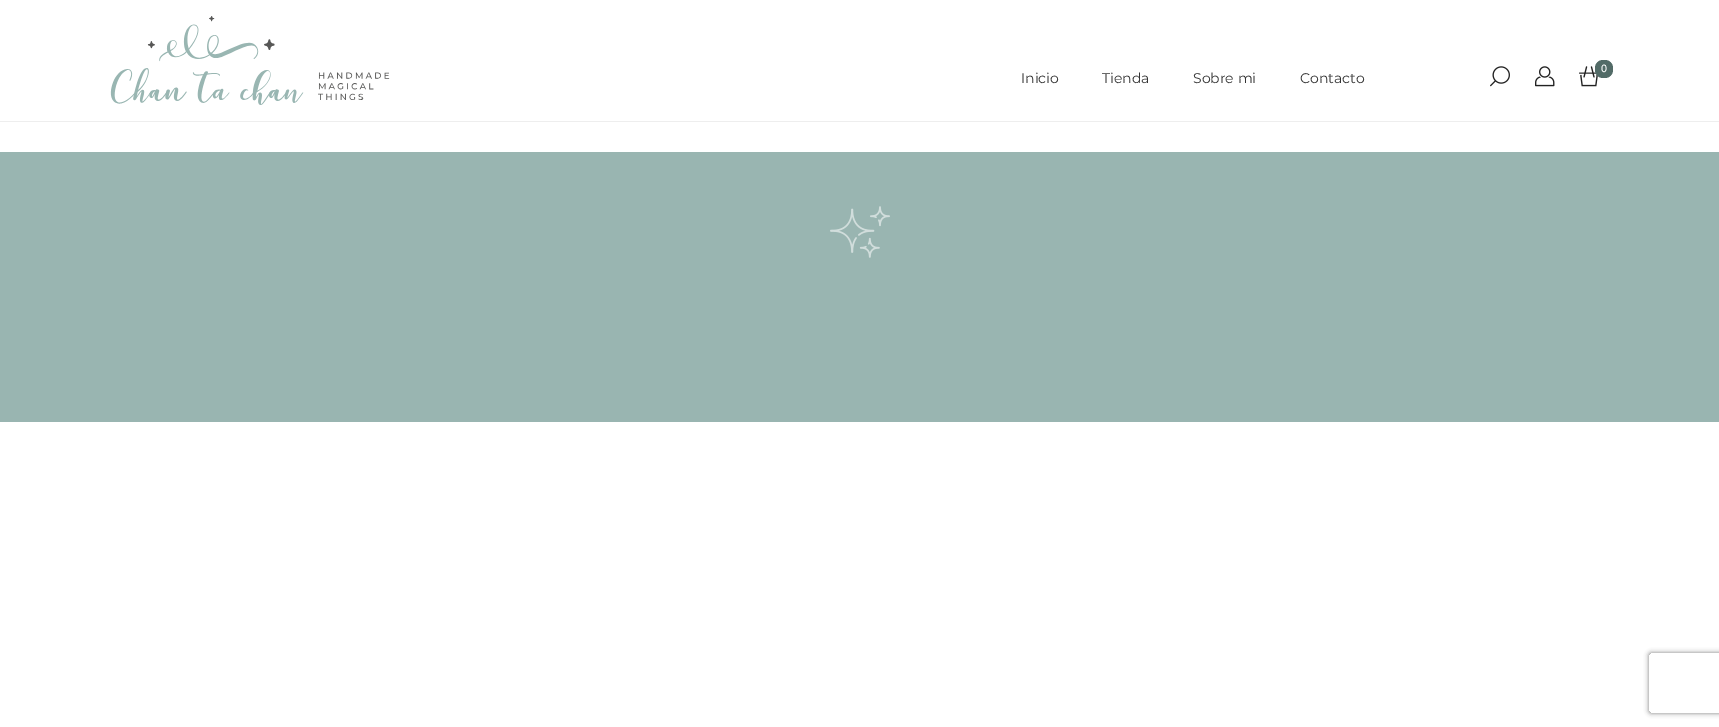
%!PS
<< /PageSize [1719 727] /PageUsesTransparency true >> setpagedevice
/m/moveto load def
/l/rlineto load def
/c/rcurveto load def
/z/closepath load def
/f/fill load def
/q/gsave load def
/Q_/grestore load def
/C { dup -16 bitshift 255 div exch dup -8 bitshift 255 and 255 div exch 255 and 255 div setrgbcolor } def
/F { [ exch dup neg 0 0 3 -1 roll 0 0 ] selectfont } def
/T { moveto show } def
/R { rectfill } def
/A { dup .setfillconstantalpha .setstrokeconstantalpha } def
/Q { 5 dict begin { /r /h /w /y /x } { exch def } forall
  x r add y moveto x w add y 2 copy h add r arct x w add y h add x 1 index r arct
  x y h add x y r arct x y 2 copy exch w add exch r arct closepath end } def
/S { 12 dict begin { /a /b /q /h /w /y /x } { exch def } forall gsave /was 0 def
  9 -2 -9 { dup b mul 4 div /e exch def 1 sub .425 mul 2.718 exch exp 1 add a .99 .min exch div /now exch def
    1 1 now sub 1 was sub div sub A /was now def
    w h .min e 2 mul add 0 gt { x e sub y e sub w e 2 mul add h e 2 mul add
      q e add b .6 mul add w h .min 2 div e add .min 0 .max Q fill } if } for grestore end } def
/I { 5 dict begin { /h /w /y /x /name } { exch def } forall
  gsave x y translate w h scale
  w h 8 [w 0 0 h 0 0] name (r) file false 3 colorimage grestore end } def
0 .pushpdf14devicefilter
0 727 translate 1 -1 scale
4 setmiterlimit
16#FFFFFF C
0 0 1719 727 R
16#EEEEEE C
0 121 1719 1 R
(1.rgb) 110 16 280 89 I
(2.rgb) 1490 66 20 21 I
(3.rgb) 1535 66 20 21 I
(4.rgb) 1579 66 19 21 I
16#526B67 C
1595 60 18 18 8 Q f
/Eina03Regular-Bold 10 F
16#FFFFFF C
(0) 1601 72 T
/Montserrat-Regular 14 F
16#333333 C
(Inicio) 1021 83 T
(Tienda) 1102 83 T
(Sobre mi) 1193 83 T
(Contacto) 1300 83 T
16#99B5B1 C
0 152 1719 270 R
(5.rgb) 830 206 60 52 I
q
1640 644 m 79 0 l 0 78 l -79 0 l z 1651 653 m 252 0 l 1 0 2 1 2 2 c 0 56 l 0 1 -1 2 -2 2 c -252 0 l -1 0 -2 -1 -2 -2 c 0 -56 l 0 -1 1 -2 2 -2 c z eoclip newpath
16#808080 C
1649 653 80 60 2 2.5 1 S
Q_
.poppdf14devicefilter showpage
